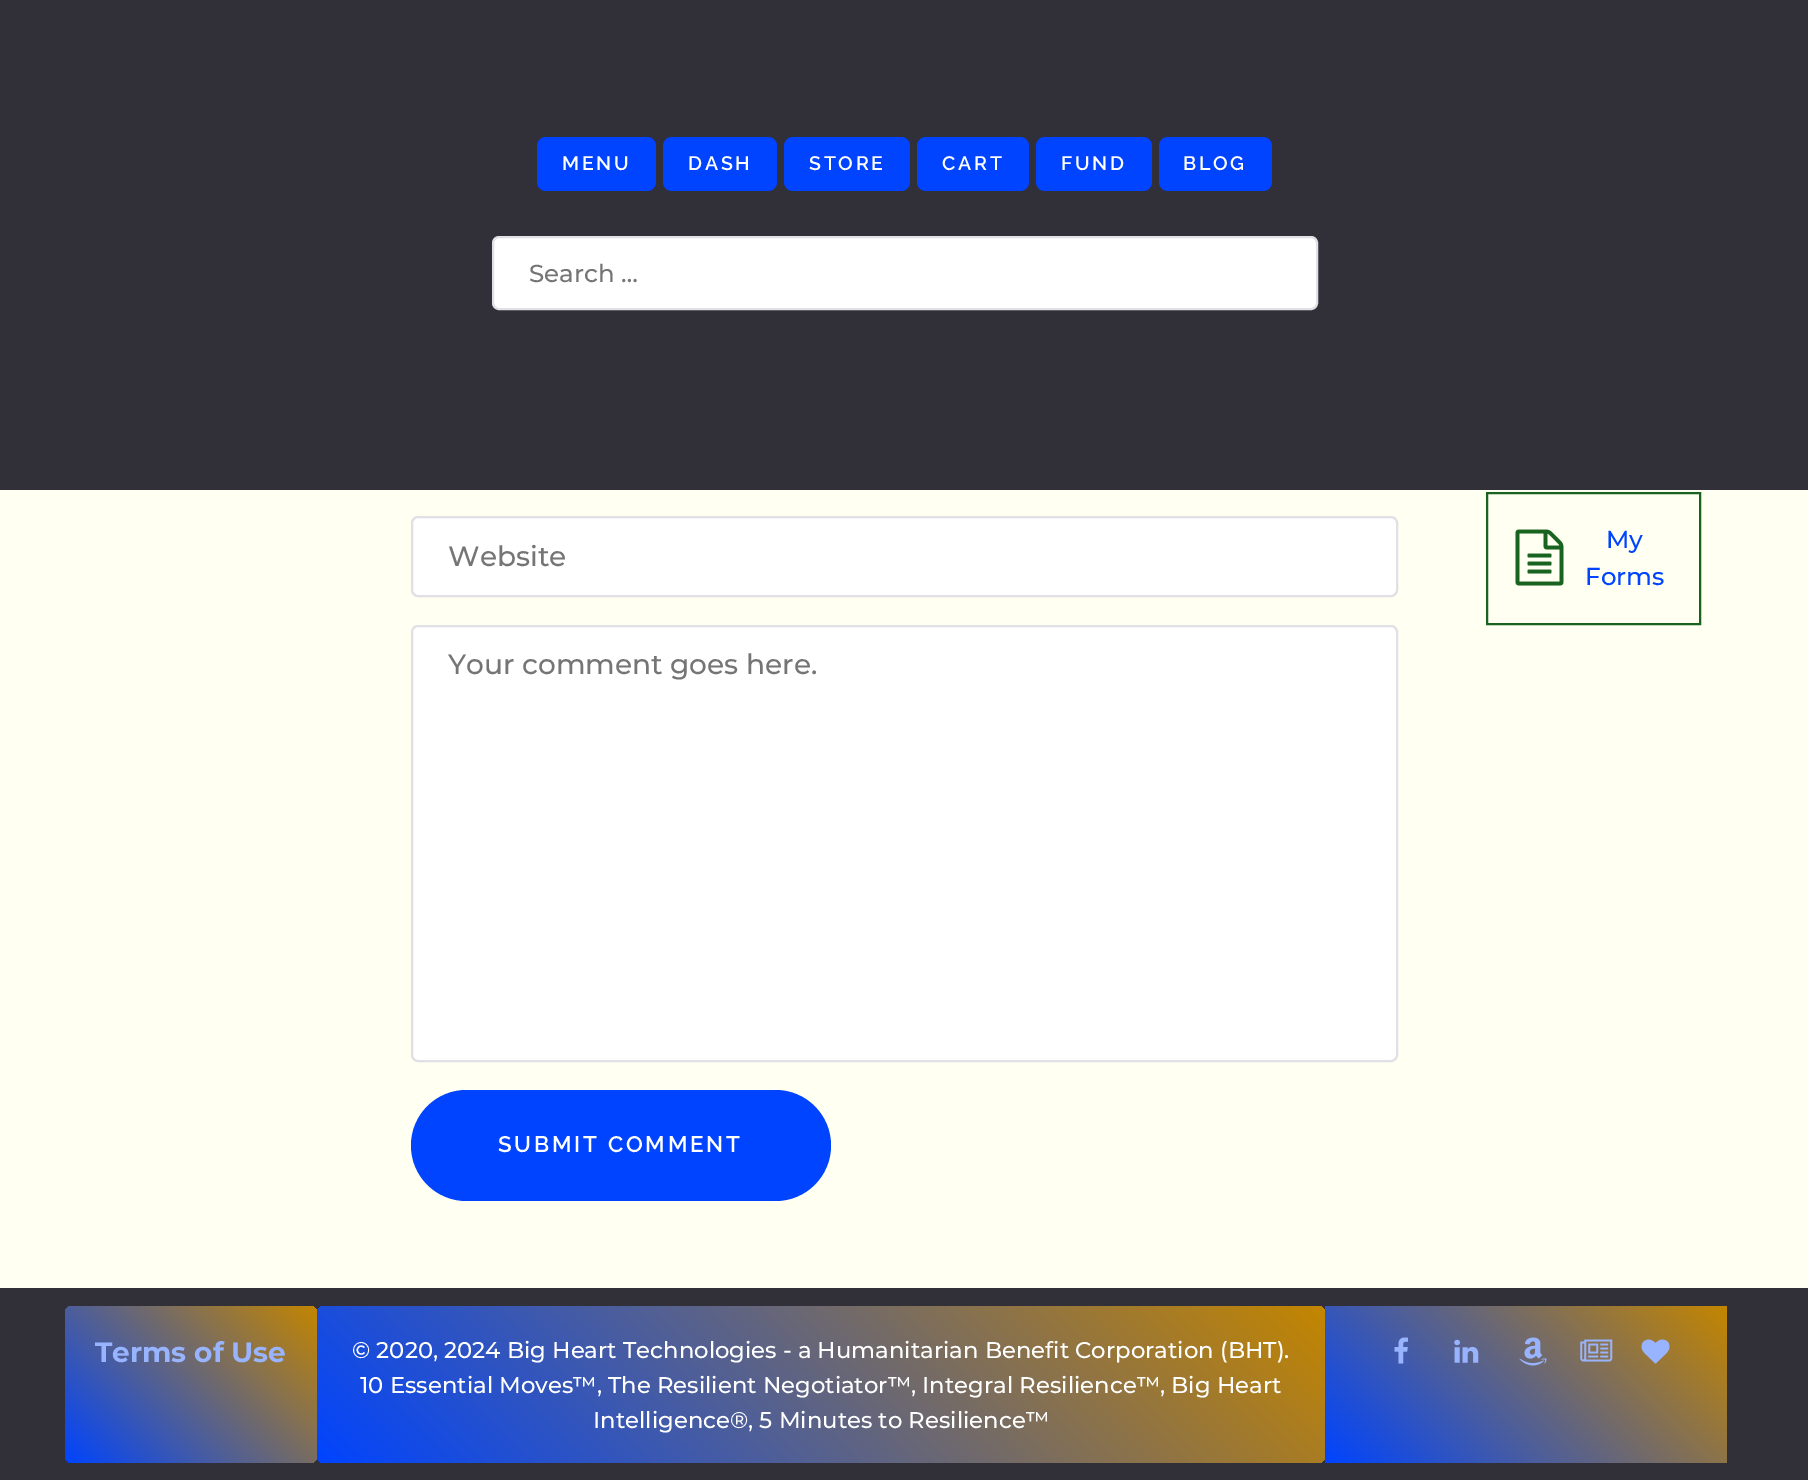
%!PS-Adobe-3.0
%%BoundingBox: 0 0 1808 1480
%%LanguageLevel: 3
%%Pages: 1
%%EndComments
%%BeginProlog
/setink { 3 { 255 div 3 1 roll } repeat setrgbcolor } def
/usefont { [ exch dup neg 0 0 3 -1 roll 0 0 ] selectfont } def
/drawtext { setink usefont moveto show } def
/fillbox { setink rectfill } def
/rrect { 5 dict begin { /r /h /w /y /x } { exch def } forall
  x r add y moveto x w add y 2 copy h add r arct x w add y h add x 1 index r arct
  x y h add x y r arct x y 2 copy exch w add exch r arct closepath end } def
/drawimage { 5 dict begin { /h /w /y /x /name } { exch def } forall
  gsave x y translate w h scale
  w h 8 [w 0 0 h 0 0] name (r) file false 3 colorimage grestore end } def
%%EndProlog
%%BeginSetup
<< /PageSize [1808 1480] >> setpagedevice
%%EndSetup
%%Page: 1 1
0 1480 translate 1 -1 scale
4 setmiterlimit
0 0 1808 1480 255 255 242 fillbox
0 0 1808 490 49 47 56 fillbox
0 68 255 setink
537 137 119 54 9 rrect fill
/Raleway-SemiBold 19.5 usefont
255 255 255 setink
562 170 moveto 2.75 0 (MENU) ashow
0 68 255 setink
663 137 114 54 9 rrect fill
255 255 255 setink
688 170 moveto 2.75 0 (DASH) ashow
0 68 255 setink
784 137 126 54 9 rrect fill
255 255 255 setink
809 170 moveto 2.75 0 (STORE) ashow
0 68 255 setink
917 137 112 54 9 rrect fill
255 255 255 setink
942 170 moveto 2.75 0 (CART) ashow
0 68 255 setink
1036 137 116 54 9 rrect fill
255 255 255 setink
1061 170 moveto 2.75 0 (FUND) ashow
0 68 255 setink
1159 137 113 54 9 rrect fill
255 255 255 setink
1183 170 moveto 2.75 0 (BLOG) ashow
493 237 824 72 6 rrect gsave fill grestore
224 224 229 setink
2 setlinewidth
stroke
(Search …) 529 282 /Montserrat-Medium 24.5 117 117 117 drawtext
255 255 255 setink
412 517 985 79 6 rrect gsave fill grestore
224 224 229 setink
stroke
(Website) 448 566 /Montserrat-Medium 28 117 117 117 drawtext
255 255 255 setink
412 626 985 435 6 rrect gsave fill grestore
224 224 229 setink
stroke
(Your comment goes here.) 448 674 /Montserrat-Medium 28 117 117 117 drawtext
0 68 255 setink
411 1090 420 111 55.5 rrect fill
/Raleway-SemiBold 22.4 usefont
255 255 255 setink
498 1152 moveto 2.75 0 (SUBMIT COMMENT) ashow
24 99 32 setink
1487 493 213 131 rectstroke
(assets/img1.rgb) 1515 529 49 57 drawimage
(My) 1606 548 /Montserrat-Medium 24.5 0 68 255 drawtext
(Forms) 1585 585 /Montserrat-Medium 24.5 0 68 255 drawtext
0 1288 1808 192 49 47 56 fillbox
gsave 65 1306 252 157 7 rrect clip newpath
<< /ShadingType 2 /ColorSpace /DeviceRGB /Coords [88 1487 293 1282] /Extend [true true] /Function << /FunctionType 2 /Domain [0 1] /C0 [0 0.267 1] /C1 [0.769 0.525 0] /N 1 >> >> shfill grestore
(Terms of Use) 95 1362 /Montserrat-Bold 28 153 180 255 drawtext
gsave 317 1306 1008 157 7 rrect clip newpath
<< /ShadingType 2 /ColorSpace /DeviceRGB /Coords [529 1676 1112 1093] /Extend [true true] /Function << /FunctionType 2 /Domain [0 1] /C0 [0 0.267 1] /C1 [0.769 0.525 0] /N 1 >> >> shfill grestore
(© 2020, 2024 Big Heart Technologies - a Humanitarian Benefit Corporation \(BHT\).) 352 1358 /Montserrat-Medium 22.75 255 255 255 drawtext
(10 Essential Moves™, The Resilient Negotiator™, Integral Resilience™, Big Heart) 360 1393 /Montserrat-Medium 22.75 255 255 255 drawtext
(Intelligence®, 5 Minutes to Resilience™) 593 1428 /Montserrat-Medium 22.75 255 255 255 drawtext
gsave 1325 1306 moveto 1727 1306 lineto 1727 1463 lineto 1325 1463 lineto closepath clip newpath
<< /ShadingType 2 /ColorSpace /DeviceRGB /Coords [1386 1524 1666 1244] /Extend [true true] /Function << /FunctionType 2 /Domain [0 1] /C0 [0 0.267 1] /C1 [0.769 0.525 0] /N 1 >> >> shfill grestore
(assets/img2.rgb) 1394 1337 14 27 drawimage
(assets/img3.rgb) 1454 1339 25 24 drawimage
(assets/img4.rgb) 1519 1337 28 29 drawimage
(assets/img5.rgb) 1580 1339 33 23 drawimage
(assets/img6.rgb) 1641 1339 29 25 drawimage
showpage
%%EOF
